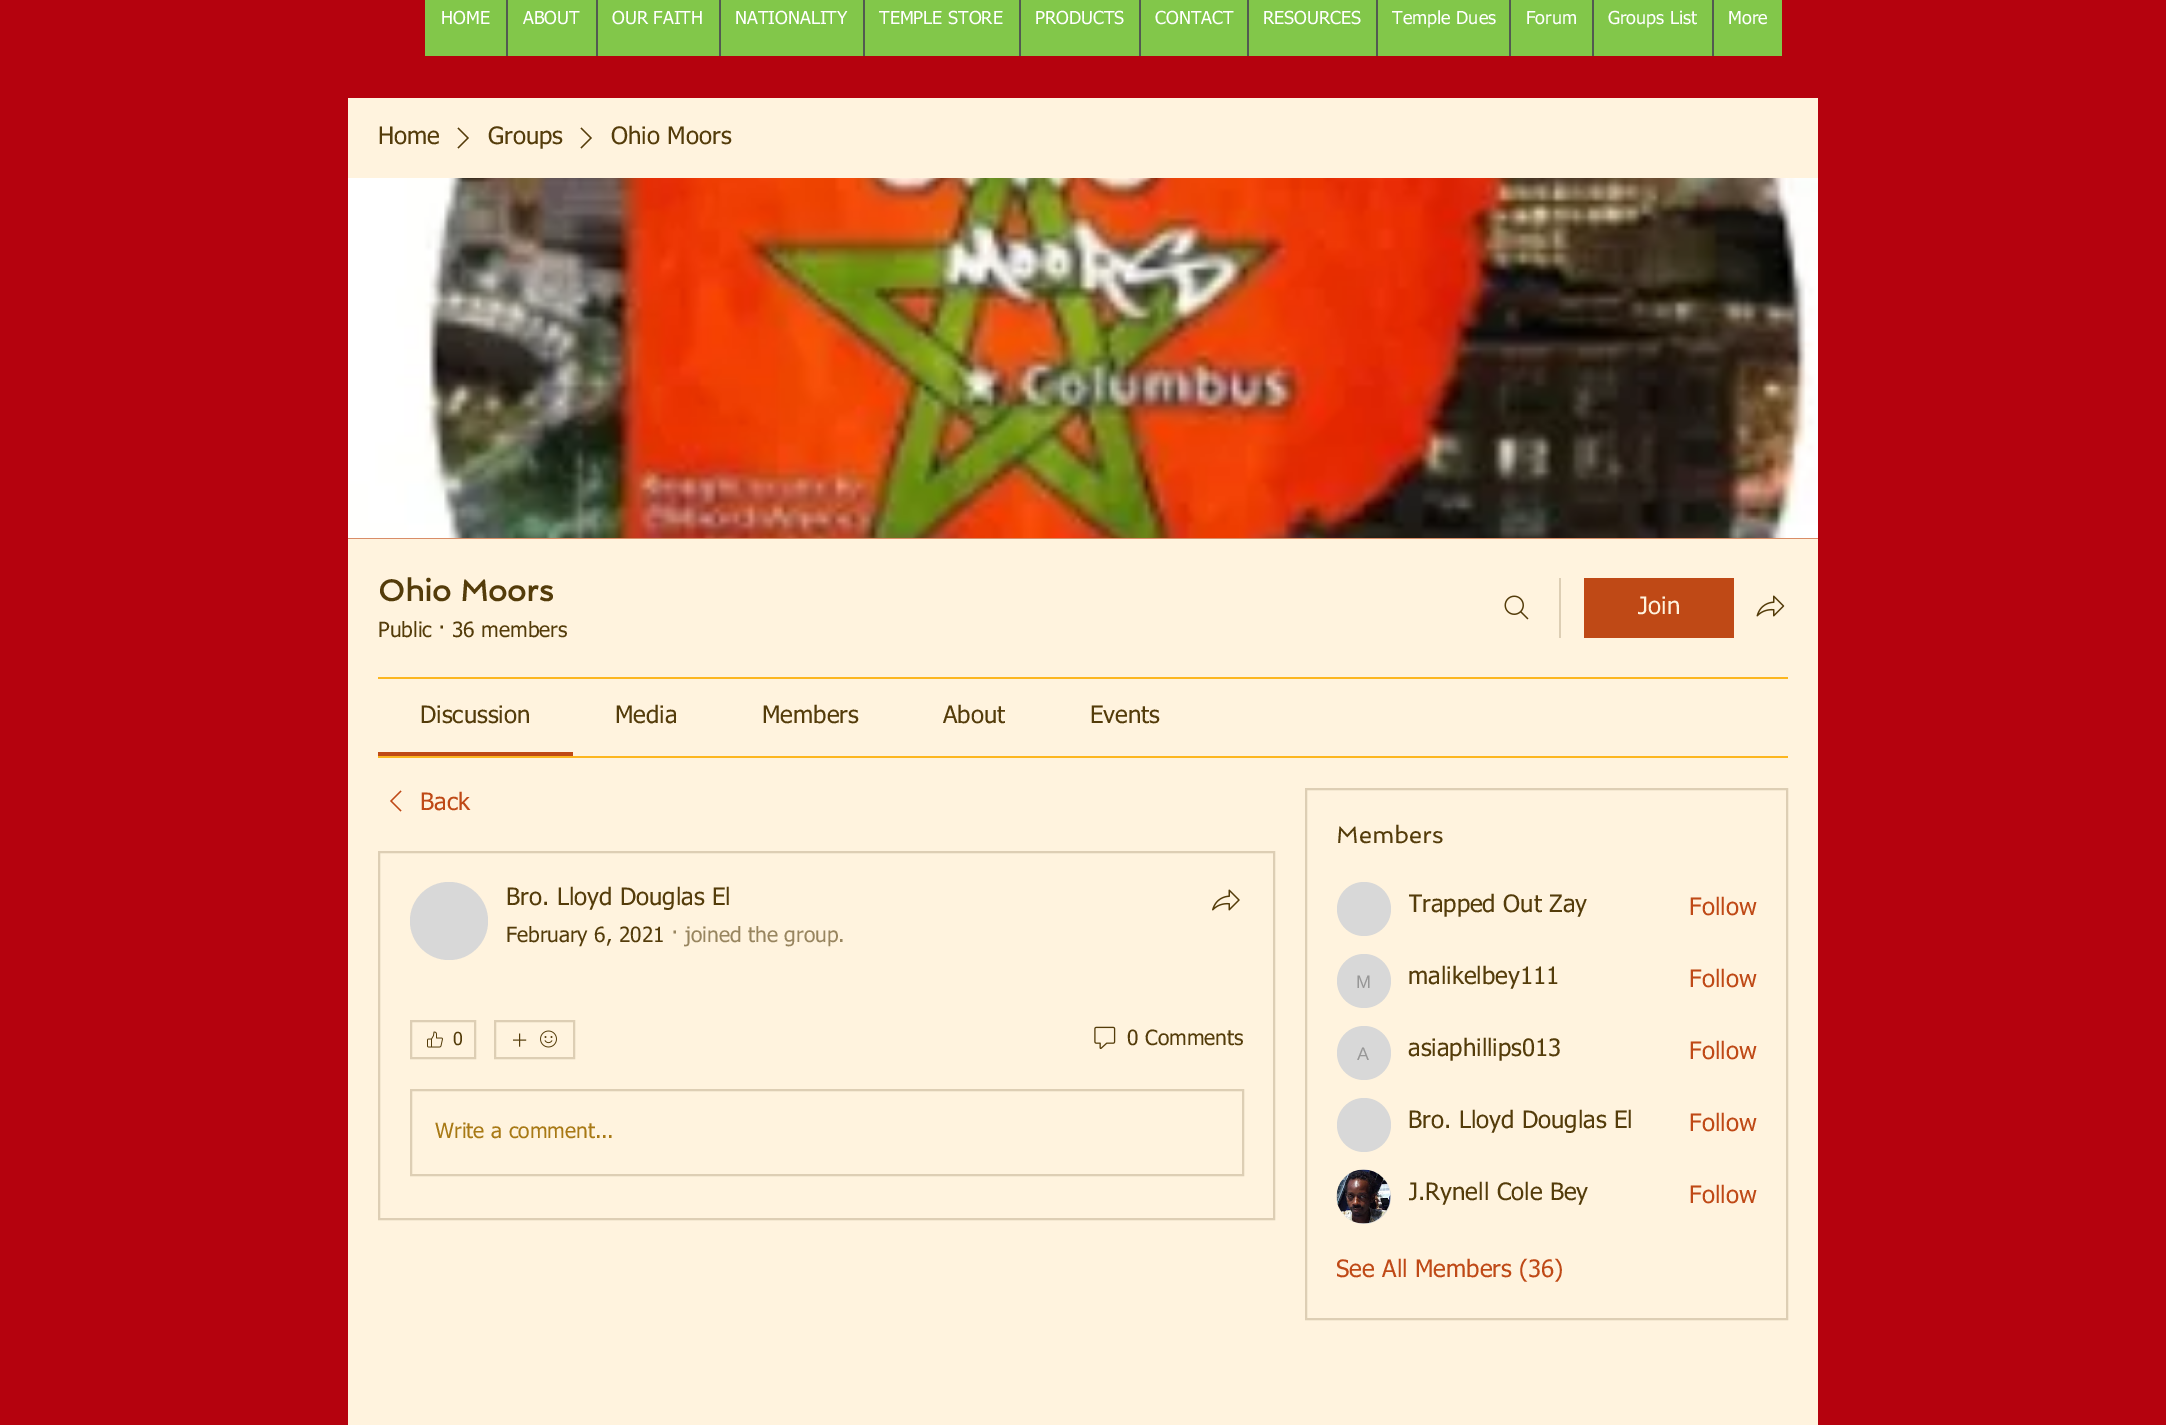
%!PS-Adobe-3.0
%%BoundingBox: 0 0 2166 1425
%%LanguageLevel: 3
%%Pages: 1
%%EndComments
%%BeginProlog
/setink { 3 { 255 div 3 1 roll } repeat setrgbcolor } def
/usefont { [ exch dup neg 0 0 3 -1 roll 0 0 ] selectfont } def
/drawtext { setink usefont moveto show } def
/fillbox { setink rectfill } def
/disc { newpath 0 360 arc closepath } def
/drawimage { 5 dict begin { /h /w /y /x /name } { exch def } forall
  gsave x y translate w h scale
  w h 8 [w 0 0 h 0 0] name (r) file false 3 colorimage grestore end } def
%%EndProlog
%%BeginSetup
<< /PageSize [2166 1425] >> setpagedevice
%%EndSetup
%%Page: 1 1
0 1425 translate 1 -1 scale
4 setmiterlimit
0 0 2166 1425 181 2 14 fillbox
425 0 1357 56 130 199 74 fillbox
(HOME) 441 24 /tahoma-Regular 18 255 255 255 drawtext
506 0 2 56 82 90 81 fillbox
(ABOUT) 523 24 /tahoma-Regular 18 255 255 255 drawtext
596 0 2 56 82 90 81 fillbox
(OUR FAITH) 612 24 /tahoma-Regular 18 255 255 255 drawtext
719 0 2 56 82 90 81 fillbox
(NATIONALITY) 735 24 /tahoma-Regular 18 255 255 255 drawtext
863 0 2 56 82 90 81 fillbox
(TEMPLE STORE) 879 24 /tahoma-Regular 18 255 255 255 drawtext
1019 0 2 56 82 90 81 fillbox
(PRODUCTS) 1035 24 /tahoma-Regular 18 255 255 255 drawtext
1139 0 2 56 82 90 81 fillbox
(CONTACT) 1155 24 /tahoma-Regular 18 255 255 255 drawtext
1247 0 2 56 82 90 81 fillbox
(RESOURCES) 1263 24 /tahoma-Regular 18 255 255 255 drawtext
1376 0 2 56 82 90 81 fillbox
(Temple Dues) 1392 24 /tahoma-Regular 18 255 255 255 drawtext
1509 0 2 56 82 90 81 fillbox
(Forum) 1526 24 /tahoma-Regular 18 255 255 255 drawtext
1592 0 2 56 82 90 81 fillbox
(Groups List) 1608 24 /tahoma-Regular 18 255 255 255 drawtext
1712 0 2 56 82 90 81 fillbox
(More) 1728 24 /tahoma-Regular 18 255 255 255 drawtext
348 98 1470 1327 255 243 222 fillbox
(Home) 378 144 /tahoma-Regular 24 84 60 10 drawtext
458.5 127.5 moveto 469 138 lineto 458.5 148.5 lineto 457.5 147.5 lineto 467 138 lineto 457.5 128.5 lineto closepath eofill
(Groups) 488 144 /tahoma-Regular 24 84 60 10 drawtext
581.5 127.5 moveto 592 138 lineto 581.5 148.5 lineto 580.5 147.5 lineto 590 138 lineto 580.5 128.5 lineto closepath eofill
(Ohio Moors) 611 144 /tahoma-Regular 24 84 60 10 drawtext
348 538 1470 1 217 141 103 fillbox
(assets/img1.rgb) 348 178 1470 360 drawimage
(Ohio Moors) 378 601 /Spinnaker-Bold 30 84 60 10 drawtext
(Public) 378 637 /tahoma-Regular 21 84 60 10 drawtext
(·) 438 637 /tahoma-Regular 21 84 60 10 drawtext
(36 members) 452 637 /tahoma-Regular 21 84 60 10 drawtext
(assets/img2.rgb) 1504 595 25 25 drawimage
1559 578 2 60 221 206 180 fillbox
1584 578 150 60 191 73 22 fillbox
(Join) 1638 614 /tahoma-Regular 24 255 243 222 drawtext
(assets/img3.rgb) 1756 595 29 22 drawimage
378 677 1410 2 252 182 32 fillbox
378 756 1410 2 252 182 32 fillbox
378 752 195 4 191 73 22 fillbox
(Discussion) 420 723 /tahoma-Regular 24 84 60 10 drawtext
(Media) 615 723 /tahoma-Regular 24 84 60 10 drawtext
(Members) 762 723 /tahoma-Regular 24 84 60 10 drawtext
(About) 943 723 /tahoma-Regular 24 84 60 10 drawtext
(Events) 1090 723 /tahoma-Regular 24 84 60 10 drawtext
191 73 22 setink
400.5 790.5 moveto 401.5 791.5 lineto 392 801 lineto 401.5 810.5 lineto 400.5 811.5 lineto 390 801 lineto closepath eofill
(Back) 420 810 /tahoma-Regular 24 191 73 22 drawtext
221 206 180 setink
2 setlinewidth
379 852 895 367 rectstroke
216 216 216 setink
449 921 39 disc fill
(Bro. Lloyd Douglas El) 506 905 /tahoma-Regular 24 84 60 10 drawtext
(February 6, 2021) 506 942 /tahoma-Regular 21 84 60 10 drawtext
(· joined the group.) 671 942 /tahoma-Regular 21 152 133 95 drawtext
(assets/img4.rgb) 1212 889 28 22 drawimage
221 206 180 setink
411 1021 64 37 rectstroke
(assets/img5.rgb) 427 1031 16 17 drawimage
(0) 453 1045 /tahoma-Regular 18 84 60 10 drawtext
221 206 180 setink
495 1021 79 37 rectstroke
(assets/img6.rgb) 513 1033 14 14 drawimage
(assets/img7.rgb) 540 1030 17 18 drawimage
(assets/img8.rgb) 1094 1026 22 23 drawimage
(0 Comments) 1127 1045 /tahoma-Regular 21 84 60 10 drawtext
221 206 180 setink
411 1090 832 85 rectstroke
(Write a comment...) 435 1138 /tahoma-Regular 21 168 121 21 drawtext
221 206 180 setink
1306 789 481 530 rectstroke
(Members) 1336 843 /Spinnaker-Regular 24 84 60 10 drawtext
216 216 216 setink
1364 909 27 disc fill
gsave
1409 890 178 34 rectclip
(Trapped Out Zay) 1408 912 /tahoma-Regular 24 84 60 10 drawtext
grestore
(Follow) 1689 915 /tahoma-Regular 24 191 73 22 drawtext
216 216 216 setink
1364 981 27 disc fill
(M) 1356 988 /LiberationSans-Regular 18 151 151 151 drawtext
(malikelbey111) 1408 984 /tahoma-Regular 24 84 60 10 drawtext
(Follow) 1689 987 /tahoma-Regular 24 191 73 22 drawtext
216 216 216 setink
1364 1053 27 disc fill
(A) 1357 1060 /LiberationSans-Regular 18 151 151 151 drawtext
(asiaphillips013) 1408 1056 /tahoma-Regular 24 84 60 10 drawtext
(Follow) 1689 1059 /tahoma-Regular 24 191 73 22 drawtext
216 216 216 setink
1364 1125 27 disc fill
(Bro. Lloyd Douglas El) 1408 1128 /tahoma-Regular 24 84 60 10 drawtext
(Follow) 1689 1131 /tahoma-Regular 24 191 73 22 drawtext
216 216 216 setink
1364 1197 27 disc fill
(assets/img9.rgb) 1336 1169 55 55 drawimage
gsave
1409 1178 180 34 rectclip
(J.Rynell Cole Bey) 1408 1200 /tahoma-Regular 24 84 60 10 drawtext
grestore
(Follow) 1689 1203 /tahoma-Regular 24 191 73 22 drawtext
(See All Members \(36\)) 1336 1277 /tahoma-Regular 24 191 73 22 drawtext
showpage
%%EOF
